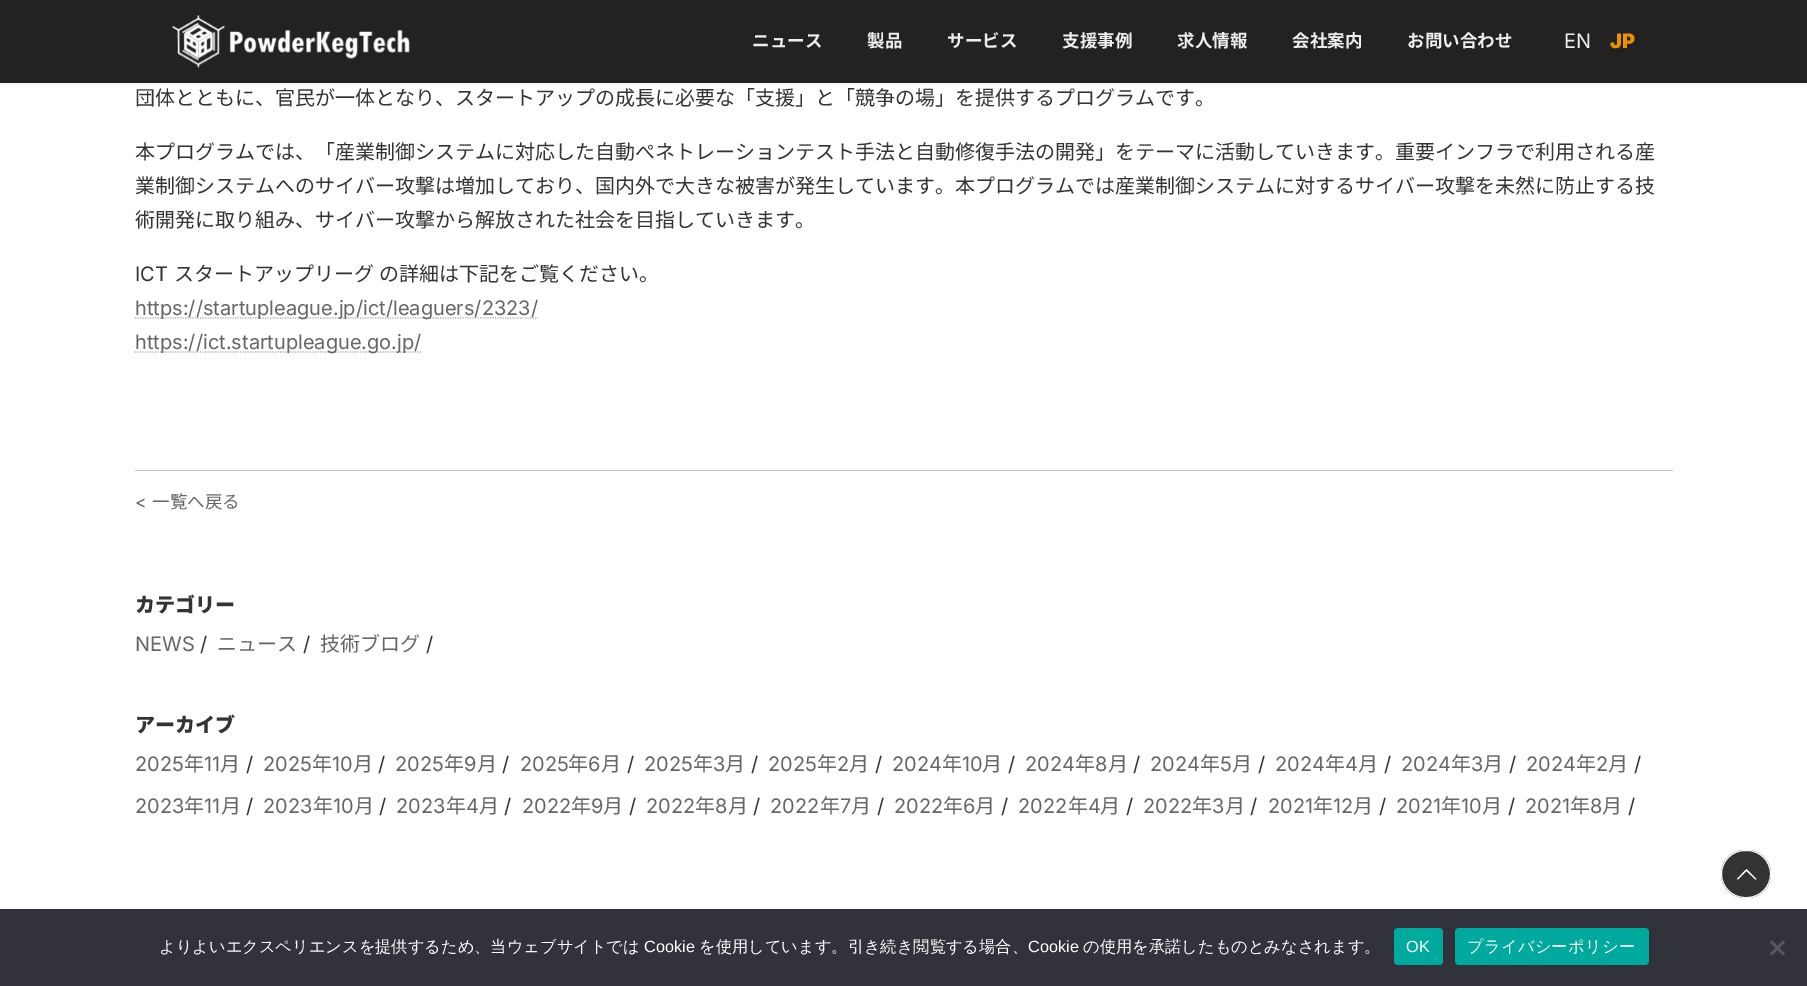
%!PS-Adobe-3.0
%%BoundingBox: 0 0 1807 986
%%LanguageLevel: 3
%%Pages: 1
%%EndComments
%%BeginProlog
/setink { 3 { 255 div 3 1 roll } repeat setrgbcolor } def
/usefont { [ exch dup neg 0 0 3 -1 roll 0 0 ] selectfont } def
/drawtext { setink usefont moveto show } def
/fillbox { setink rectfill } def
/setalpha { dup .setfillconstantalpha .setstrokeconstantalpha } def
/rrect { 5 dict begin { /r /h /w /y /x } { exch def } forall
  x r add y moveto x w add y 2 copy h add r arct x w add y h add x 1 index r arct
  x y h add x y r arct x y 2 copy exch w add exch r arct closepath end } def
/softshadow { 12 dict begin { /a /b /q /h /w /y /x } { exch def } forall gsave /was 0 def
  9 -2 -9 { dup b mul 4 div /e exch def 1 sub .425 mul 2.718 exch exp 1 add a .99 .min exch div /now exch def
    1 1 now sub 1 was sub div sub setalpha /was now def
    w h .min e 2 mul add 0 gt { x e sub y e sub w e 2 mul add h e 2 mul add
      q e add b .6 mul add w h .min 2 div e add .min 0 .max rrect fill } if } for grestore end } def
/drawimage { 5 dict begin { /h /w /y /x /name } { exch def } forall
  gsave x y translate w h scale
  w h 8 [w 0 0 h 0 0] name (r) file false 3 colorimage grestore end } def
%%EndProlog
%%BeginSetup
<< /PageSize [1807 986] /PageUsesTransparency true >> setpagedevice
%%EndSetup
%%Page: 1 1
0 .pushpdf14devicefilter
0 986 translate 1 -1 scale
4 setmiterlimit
0 0 1807 986 255 255 255 fillbox
0 0 0 setink
0 1 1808 83 0 2 0.05 softshadow
0 0 1807 83 34 34 34 fillbox
(assets/img1.rgb) 172 15 238 53 drawimage
(ニュース) 752 47 /NotoSansJP-Bold 17.5 238 238 238 drawtext
(製品) 867 47 /NotoSansJP-Bold 17.5 238 238 238 drawtext
(サービス) 947 47 /NotoSansJP-Bold 17.5 238 238 238 drawtext
(支援事例) 1062 47 /NotoSansJP-Bold 17.5 238 238 238 drawtext
(求人情報) 1177 47 /NotoSansJP-Bold 17.5 238 238 238 drawtext
(会社案内) 1292 47 /NotoSansJP-Bold 17.5 238 238 238 drawtext
(お問い合わせ) 1407 47 /NotoSansJP-Bold 17.5 238 238 238 drawtext
(EN) 1564 48 /Inter-Regular 20 238 238 238 drawtext
24 24 24 setink
1.2 setlinewidth
[1.25 1.25] 0 setdash
1564 50.5 moveto 1591 50.5 lineto stroke
(JP) 1610 48 /Inter-Black 20 236 146 0 drawtext
24 24 24 setink
1610 50.5 moveto 1635 50.5 lineto stroke
135 470 1538 1 196 196 196 fillbox
(団体とともに、官民が一体となり、スタートアップの成長に必要な「支援」と「競争の場」を提供するプログラムです。) 135 105 /NotoSansJP-Regular 20 51 51 51 drawtext
(本プログラムでは、「産業制御システムに対応した自動ぺネトレーションテスト手法と自動修復手法の開発」をテーマに活動していきます。重要インフラで利用される産) 135 159 /NotoSansJP-Regular 20 51 51 51 drawtext
(業制御システムへのサイバー攻撃は増加しており、国内外で大きな被害が発生しています。本プログラムでは産業制御システムに対するサイバー攻撃を未然に防止する技) 135 193 /NotoSansJP-Regular 20 51 51 51 drawtext
(術開発に取り組み、サイバー攻撃から解放された社会を目指していきます。) 135 227 /NotoSansJP-Regular 20 51 51 51 drawtext
(ICT) 135 281 /Inter-Regular 20 51 51 51 drawtext
/NotoSansJP-Regular 20 usefont
174 281 moveto 1 0 32 (スタートアップリーグ の詳細は下記をご覧ください。) widthshow
179 179 179 setink
135 318 moveto 538 318 lineto stroke
(https://startupleague.jp/ict/leaguers/2323/) 135 315 /Inter-Regular 20 102 102 102 drawtext
179 179 179 setink
135 352 moveto 421.5 352 lineto stroke
(https://ict.startupleague.go.jp/) 135 349 /Inter-Regular 20 102 102 102 drawtext
(<) 135 508 /Inter-Regular 17.5 102 102 102 drawtext
(一覧へ戻る) 152 508 /NotoSansJP-Regular 17.5 102 102 102 drawtext
(カテゴリー) 135 612 /NotoSansJP-Black 20 51 51 51 drawtext
(NEWS) 135 651 /Inter-Regular 20 102 102 102 drawtext
(/) 200 651 /Inter-Regular 20 51 51 51 drawtext
(ニュース) 217 651 /NotoSansJP-Regular 20 102 102 102 drawtext
(/) 303 651 /Inter-Regular 20 51 51 51 drawtext
(技術ブログ) 320 651 /NotoSansJP-Regular 20 102 102 102 drawtext
(/) 426 651 /Inter-Regular 20 51 51 51 drawtext
(アーカイブ) 135 732 /NotoSansJP-Black 20 51 51 51 drawtext
(2025) 135 771 /Inter-Regular 20 102 102 102 drawtext
(年) 184 771 /NotoSansJP-Regular 20 102 102 102 drawtext
(11) 204 771 /Inter-Regular 20 102 102 102 drawtext
(月) 220 771 /NotoSansJP-Regular 20 102 102 102 drawtext
(/) 246 771 /Inter-Regular 20 51 51 51 drawtext
(2025) 263 771 /Inter-Regular 20 102 102 102 drawtext
(年) 312 771 /NotoSansJP-Regular 20 102 102 102 drawtext
(10) 332 771 /Inter-Regular 20 102 102 102 drawtext
(月) 353 771 /NotoSansJP-Regular 20 102 102 102 drawtext
(/) 378 771 /Inter-Regular 20 51 51 51 drawtext
(2025) 395 771 /Inter-Regular 20 102 102 102 drawtext
(年) 444 771 /NotoSansJP-Regular 20 102 102 102 drawtext
(9) 464 771 /Inter-Regular 20 102 102 102 drawtext
(月) 477 771 /NotoSansJP-Regular 20 102 102 102 drawtext
(/) 502 771 /Inter-Regular 20 51 51 51 drawtext
(2025) 520 771 /Inter-Regular 20 102 102 102 drawtext
(年) 568 771 /NotoSansJP-Regular 20 102 102 102 drawtext
(6) 588 771 /Inter-Regular 20 102 102 102 drawtext
(月) 601 771 /NotoSansJP-Regular 20 102 102 102 drawtext
(/) 627 771 /Inter-Regular 20 51 51 51 drawtext
(2025) 644 771 /Inter-Regular 20 102 102 102 drawtext
(年) 693 771 /NotoSansJP-Regular 20 102 102 102 drawtext
(3) 713 771 /Inter-Regular 20 102 102 102 drawtext
(月) 725 771 /NotoSansJP-Regular 20 102 102 102 drawtext
(/) 751 771 /Inter-Regular 20 51 51 51 drawtext
(2025) 768 771 /Inter-Regular 20 102 102 102 drawtext
(年) 817 771 /NotoSansJP-Regular 20 102 102 102 drawtext
(2) 837 771 /Inter-Regular 20 102 102 102 drawtext
(月) 849 771 /NotoSansJP-Regular 20 102 102 102 drawtext
(/) 875 771 /Inter-Regular 20 51 51 51 drawtext
(2024) 892 771 /Inter-Regular 20 102 102 102 drawtext
(年) 942 771 /NotoSansJP-Regular 20 102 102 102 drawtext
(10) 962 771 /Inter-Regular 20 102 102 102 drawtext
(月) 982 771 /NotoSansJP-Regular 20 102 102 102 drawtext
(/) 1008 771 /Inter-Regular 20 51 51 51 drawtext
(2024) 1025 771 /Inter-Regular 20 102 102 102 drawtext
(年) 1075 771 /NotoSansJP-Regular 20 102 102 102 drawtext
(8) 1095 771 /Inter-Regular 20 102 102 102 drawtext
(月) 1108 771 /NotoSansJP-Regular 20 102 102 102 drawtext
(/) 1133 771 /Inter-Regular 20 51 51 51 drawtext
(2024) 1150 771 /Inter-Regular 20 102 102 102 drawtext
(年) 1200 771 /NotoSansJP-Regular 20 102 102 102 drawtext
(5) 1220 771 /Inter-Regular 20 102 102 102 drawtext
(月) 1232 771 /NotoSansJP-Regular 20 102 102 102 drawtext
(/) 1258 771 /Inter-Regular 20 51 51 51 drawtext
(2024) 1275 771 /Inter-Regular 20 102 102 102 drawtext
(年) 1325 771 /NotoSansJP-Regular 20 102 102 102 drawtext
(4) 1345 771 /Inter-Regular 20 102 102 102 drawtext
(月) 1358 771 /NotoSansJP-Regular 20 102 102 102 drawtext
(/) 1384 771 /Inter-Regular 20 51 51 51 drawtext
(2024) 1401 771 /Inter-Regular 20 102 102 102 drawtext
(年) 1451 771 /NotoSansJP-Regular 20 102 102 102 drawtext
(3) 1471 771 /Inter-Regular 20 102 102 102 drawtext
(月) 1483 771 /NotoSansJP-Regular 20 102 102 102 drawtext
(/) 1509 771 /Inter-Regular 20 51 51 51 drawtext
(2024) 1526 771 /Inter-Regular 20 102 102 102 drawtext
(年) 1576 771 /NotoSansJP-Regular 20 102 102 102 drawtext
(2) 1596 771 /Inter-Regular 20 102 102 102 drawtext
(月) 1608 771 /NotoSansJP-Regular 20 102 102 102 drawtext
(/) 1634 771 /Inter-Regular 20 51 51 51 drawtext
(2023) 135 813 /Inter-Regular 20 102 102 102 drawtext
(年) 184 813 /NotoSansJP-Regular 20 102 102 102 drawtext
(11) 204 813 /Inter-Regular 20 102 102 102 drawtext
(月) 221 813 /NotoSansJP-Regular 20 102 102 102 drawtext
(/) 246 813 /Inter-Regular 20 51 51 51 drawtext
(2023) 263 813 /Inter-Regular 20 102 102 102 drawtext
(年) 313 813 /NotoSansJP-Regular 20 102 102 102 drawtext
(10) 333 813 /Inter-Regular 20 102 102 102 drawtext
(月) 354 813 /NotoSansJP-Regular 20 102 102 102 drawtext
(/) 379 813 /Inter-Regular 20 51 51 51 drawtext
(2023) 396 813 /Inter-Regular 20 102 102 102 drawtext
(年) 446 813 /NotoSansJP-Regular 20 102 102 102 drawtext
(4) 466 813 /Inter-Regular 20 102 102 102 drawtext
(月) 479 813 /NotoSansJP-Regular 20 102 102 102 drawtext
(/) 504 813 /Inter-Regular 20 51 51 51 drawtext
(2022) 522 813 /Inter-Regular 20 102 102 102 drawtext
(年) 571 813 /NotoSansJP-Regular 20 102 102 102 drawtext
(9) 591 813 /Inter-Regular 20 102 102 102 drawtext
(月) 603 813 /NotoSansJP-Regular 20 102 102 102 drawtext
(/) 629 813 /Inter-Regular 20 51 51 51 drawtext
(2022) 646 813 /Inter-Regular 20 102 102 102 drawtext
(年) 695 813 /NotoSansJP-Regular 20 102 102 102 drawtext
(8) 715 813 /Inter-Regular 20 102 102 102 drawtext
(月) 728 813 /NotoSansJP-Regular 20 102 102 102 drawtext
(/) 753 813 /Inter-Regular 20 51 51 51 drawtext
(2022) 770 813 /Inter-Regular 20 102 102 102 drawtext
(年) 820 813 /NotoSansJP-Regular 20 102 102 102 drawtext
(7) 840 813 /Inter-Regular 20 102 102 102 drawtext
(月) 851 813 /NotoSansJP-Regular 20 102 102 102 drawtext
(/) 877 813 /Inter-Regular 20 51 51 51 drawtext
(2022) 894 813 /Inter-Regular 20 102 102 102 drawtext
(年) 943 813 /NotoSansJP-Regular 20 102 102 102 drawtext
(6) 963 813 /Inter-Regular 20 102 102 102 drawtext
(月) 975 813 /NotoSansJP-Regular 20 102 102 102 drawtext
(/) 1001 813 /Inter-Regular 20 51 51 51 drawtext
(2022) 1018 813 /Inter-Regular 20 102 102 102 drawtext
(年) 1068 813 /NotoSansJP-Regular 20 102 102 102 drawtext
(4) 1088 813 /Inter-Regular 20 102 102 102 drawtext
(月) 1100 813 /NotoSansJP-Regular 20 102 102 102 drawtext
(/) 1126 813 /Inter-Regular 20 51 51 51 drawtext
(2022) 1143 813 /Inter-Regular 20 102 102 102 drawtext
(年) 1192 813 /NotoSansJP-Regular 20 102 102 102 drawtext
(3) 1212 813 /Inter-Regular 20 102 102 102 drawtext
(月) 1225 813 /NotoSansJP-Regular 20 102 102 102 drawtext
(/) 1250 813 /Inter-Regular 20 51 51 51 drawtext
(2021) 1268 813 /Inter-Regular 20 102 102 102 drawtext
(年) 1313 813 /NotoSansJP-Regular 20 102 102 102 drawtext
(12) 1333 813 /Inter-Regular 20 102 102 102 drawtext
(月) 1353 813 /NotoSansJP-Regular 20 102 102 102 drawtext
(/) 1379 813 /Inter-Regular 20 51 51 51 drawtext
(2021) 1396 813 /Inter-Regular 20 102 102 102 drawtext
(年) 1441 813 /NotoSansJP-Regular 20 102 102 102 drawtext
(10) 1461 813 /Inter-Regular 20 102 102 102 drawtext
(月) 1482 813 /NotoSansJP-Regular 20 102 102 102 drawtext
(/) 1508 813 /Inter-Regular 20 51 51 51 drawtext
(2021) 1525 813 /Inter-Regular 20 102 102 102 drawtext
(年) 1570 813 /NotoSansJP-Regular 20 102 102 102 drawtext
(8) 1590 813 /Inter-Regular 20 102 102 102 drawtext
(月) 1602 813 /NotoSansJP-Regular 20 102 102 102 drawtext
(/) 1628 813 /Inter-Regular 20 51 51 51 drawtext
1721 850 50 48 24 rrect fill
255 255 255 setink
1756.5 879 moveto 1755.5 879.5 lineto 1746.5 871 lineto 1738 879.5 lineto 1737 879 lineto 1746.5 869 lineto closepath fill
1 setlinewidth
[] 0 setdash
1721.5 850.5 49 47 23.5 rrect stroke
0 909 1807 77 50 50 58 fillbox
(よりよいエクスペリエンスを提供するため、当ウェブサイトでは) 159 952 /WenQuanYiZenHei-Medium 16.25 255 255 255 drawtext
(Cookie) 644 952 /LiberationSans-Regular 16.25 255 255 255 drawtext
(を使用しています。引き続き閲覧する場合、) 699 952 /WenQuanYiZenHei-Medium 16.25 255 255 255 drawtext
(Cookie) 1028 952 /LiberationSans-Regular 16.25 255 255 255 drawtext
(の使用を承諾したものとみなされます。) 1083 952 /WenQuanYiZenHei-Medium 16.25 255 255 255 drawtext
0 169 157 setink
1394 928 49 37 4 rrect fill
/LiberationSans-Regular 16.25 usefont
255 255 255 setink
1406 952 moveto 0.25 0 (OK) ashow
0 169 157 setink
1455 928 194 37 4 rrect fill
/WenQuanYiZenHei-Medium 16.25 usefont
255 255 255 setink
1467 952 moveto 0.25 0 (プライバシーポリシー) ashow
89 89 93 setink
1783 940.5 moveto 1785 942 lineto 1772 955.5 lineto 1770 953.5 lineto closepath fill
1770 942 moveto 1772 940.5 lineto 1785 953.5 lineto 1783 955.5 lineto closepath fill
.poppdf14devicefilter showpage
%%EOF
